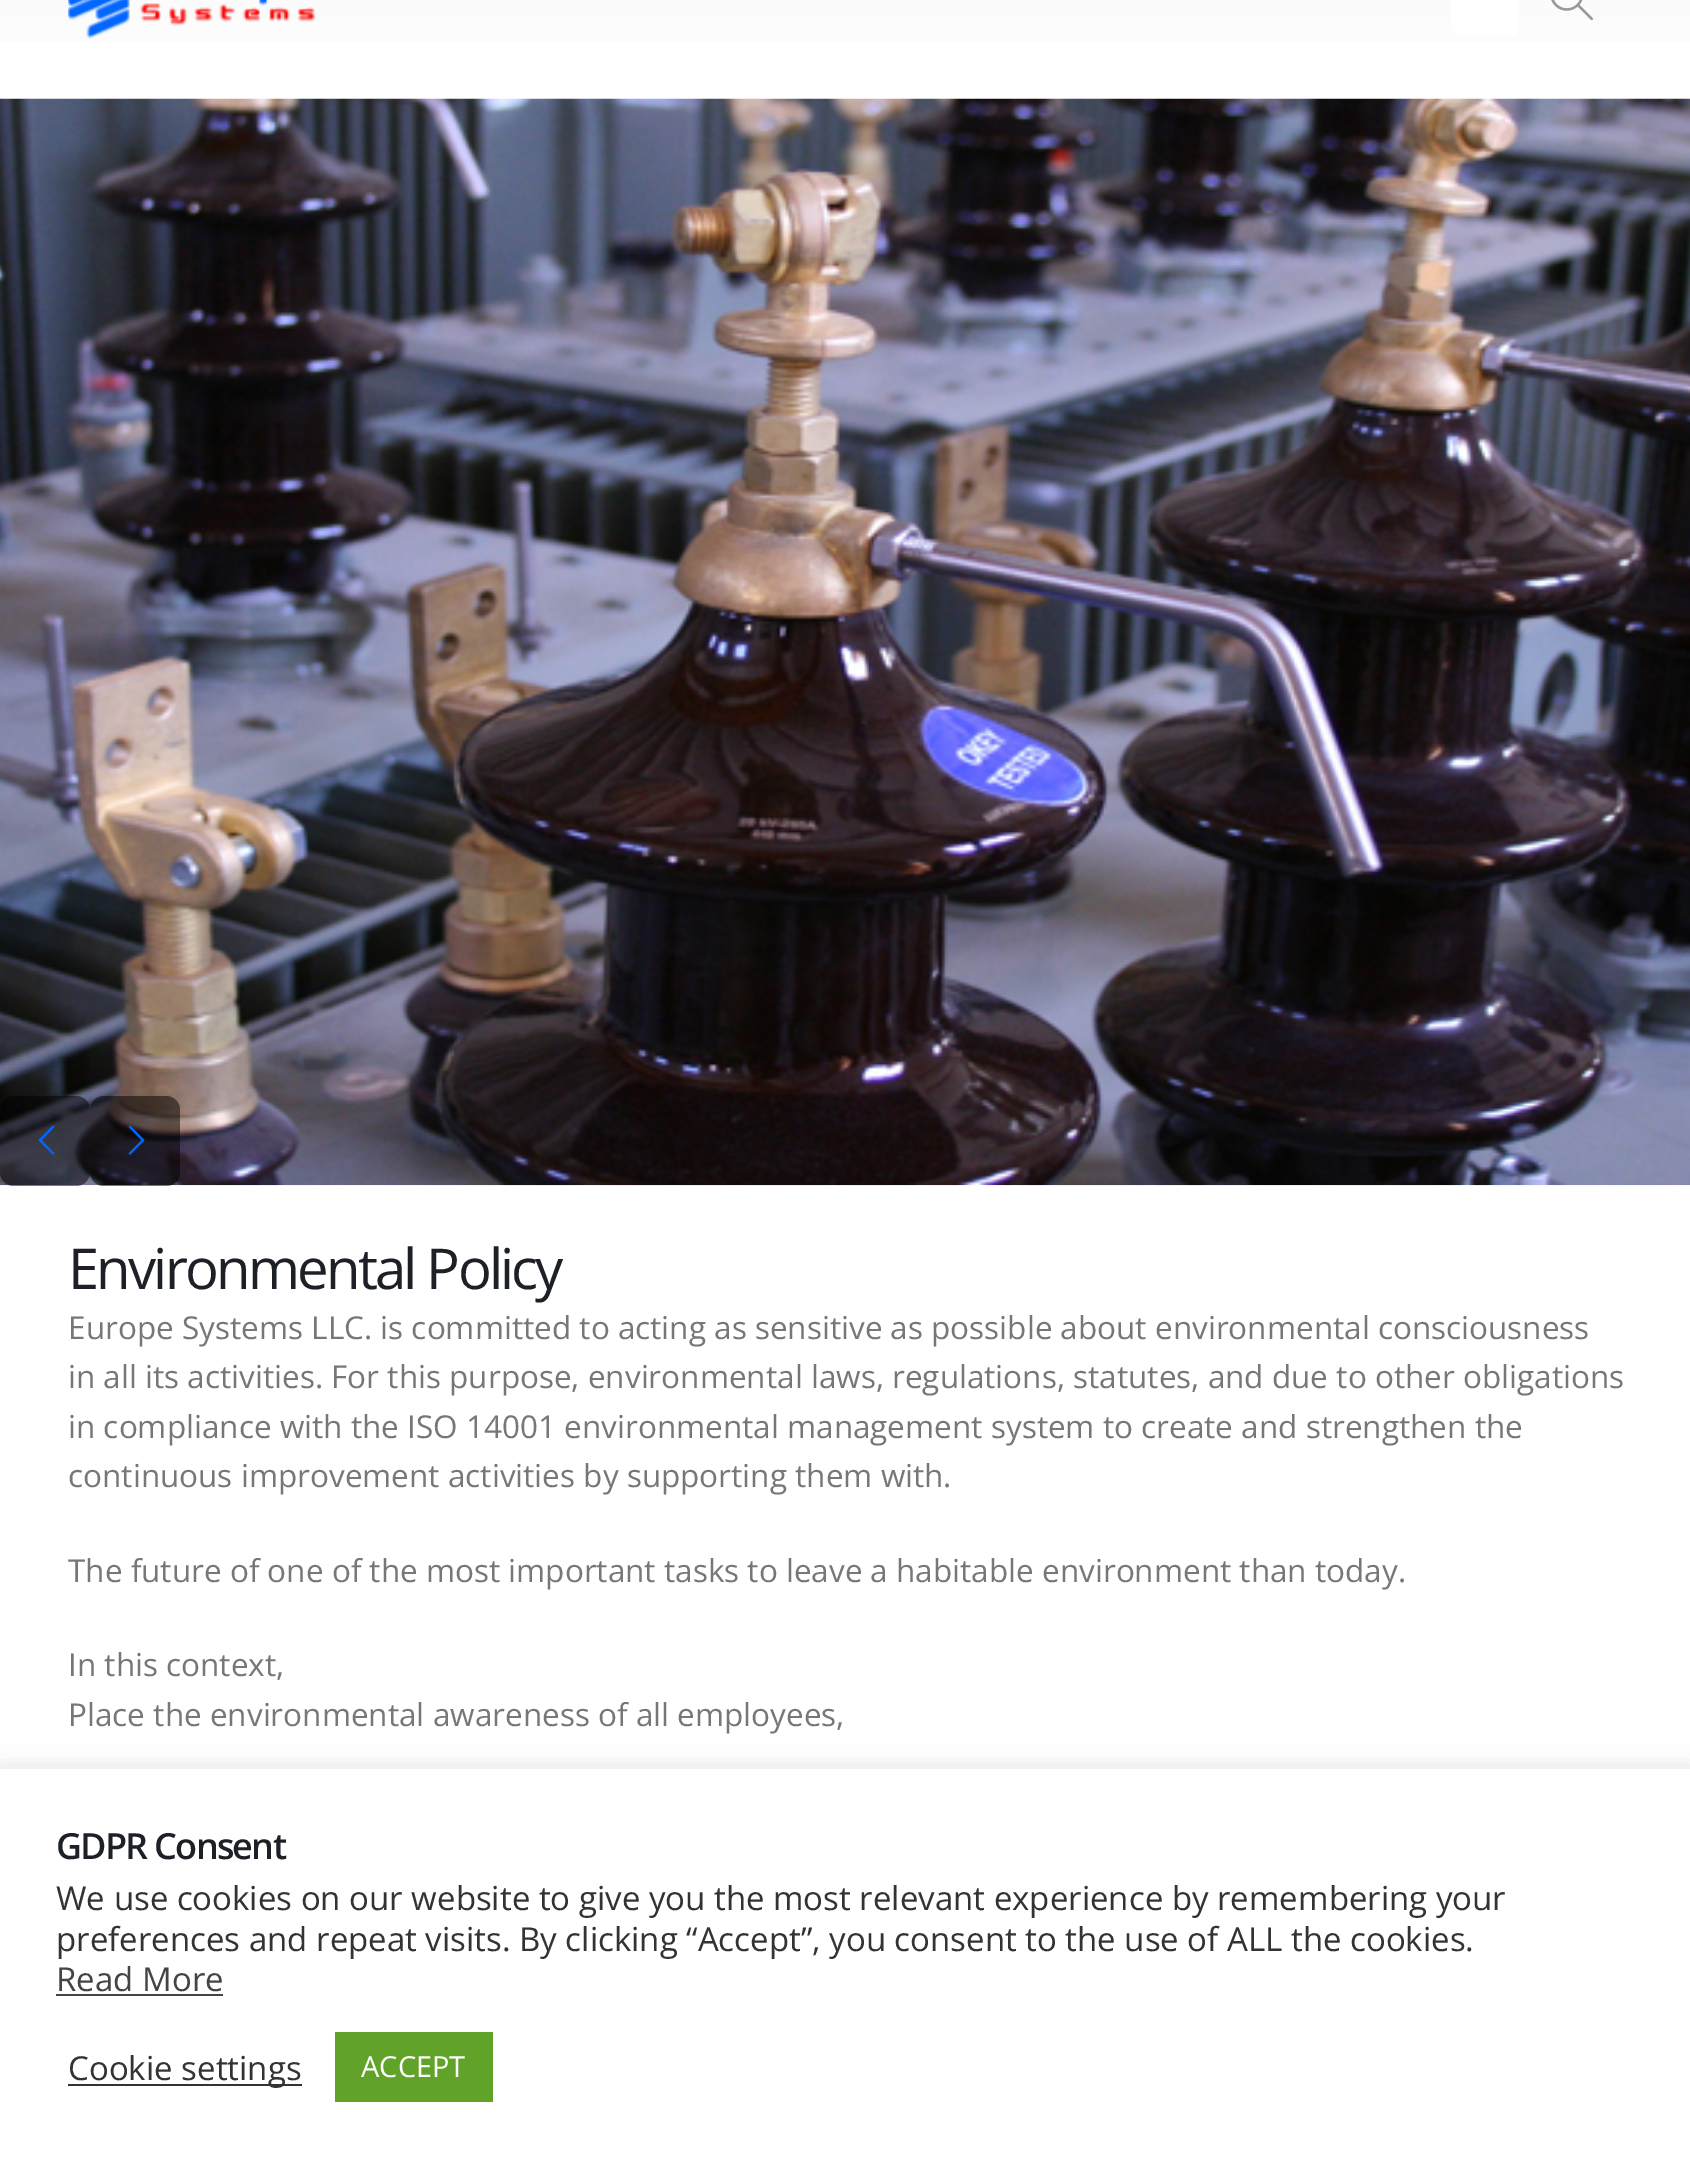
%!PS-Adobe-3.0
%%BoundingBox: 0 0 1690 2167
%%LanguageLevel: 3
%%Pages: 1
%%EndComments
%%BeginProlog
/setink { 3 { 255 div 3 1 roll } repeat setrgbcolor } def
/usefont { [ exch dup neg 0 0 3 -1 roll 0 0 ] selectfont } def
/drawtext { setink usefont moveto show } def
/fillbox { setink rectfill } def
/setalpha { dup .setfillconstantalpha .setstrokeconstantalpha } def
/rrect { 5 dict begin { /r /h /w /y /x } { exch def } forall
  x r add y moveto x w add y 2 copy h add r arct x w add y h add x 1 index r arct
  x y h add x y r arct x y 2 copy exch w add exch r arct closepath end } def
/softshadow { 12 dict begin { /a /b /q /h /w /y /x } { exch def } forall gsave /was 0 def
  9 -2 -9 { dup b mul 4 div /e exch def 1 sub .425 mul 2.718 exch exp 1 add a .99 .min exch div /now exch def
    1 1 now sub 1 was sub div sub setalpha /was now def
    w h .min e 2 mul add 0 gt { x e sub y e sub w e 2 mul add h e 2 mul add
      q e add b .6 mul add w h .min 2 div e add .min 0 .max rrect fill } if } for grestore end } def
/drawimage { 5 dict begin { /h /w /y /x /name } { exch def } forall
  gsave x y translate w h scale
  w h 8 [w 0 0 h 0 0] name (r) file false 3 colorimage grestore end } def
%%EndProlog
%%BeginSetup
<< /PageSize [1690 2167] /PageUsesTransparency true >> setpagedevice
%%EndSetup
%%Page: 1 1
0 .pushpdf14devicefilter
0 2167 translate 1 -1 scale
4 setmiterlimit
0 0 1690 2167 255 255 255 fillbox
gsave 0 0 moveto 1690 0 lineto 1690 43 lineto 0 43 lineto closepath clip newpath
<< /ShadingType 2 /ColorSpace /DeviceRGB /Coords [846 -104 846 99] /Extend [true true] /Function << /FunctionType 2 /Domain [0 1] /C0 [0.965 0.965 0.965] /C1 [1 1 1] /N 1 >> >> shfill grestore
(assets/img1.rgb) 68 0 247 39 drawimage
1451 -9 68 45 9 rrect fill
(assets/img2.rgb) 1551 0 42 21 drawimage
(assets/img3.rgb) 0 98 1690 1088 drawimage
0.5 setalpha
0 0 0 setink
0 1096 90 90 14 rrect fill
1 setalpha
(assets/img4.rgb) 38 1125 17 30 drawimage
0.5 setalpha
90 1096 90 90 14 rrect fill
1 setalpha
(assets/img5.rgb) 128 1125 17 30 drawimage
/OpenSans-Regular 56.25 usefont
29 33 39 setink
68 1289 moveto -2.8 0 (Environmental Policy) ashow
(Europe Systems LLC. is committed to acting as sensitive as possible about environmental consciousness) 68 1339 /OpenSans-Regular 31.5 119 119 119 drawtext
(in all its activities. For this purpose, environmental laws, regulations, statutes, and due to other obligations) 68 1388 /OpenSans-Regular 31.5 119 119 119 drawtext
(in compliance with the ISO 14001 environmental management system to create and strengthen the) 68 1438 /OpenSans-Regular 31.5 119 119 119 drawtext
(continuous improvement activities by supporting them with.) 68 1487 /OpenSans-Regular 31.5 119 119 119 drawtext
(The future of one of the most important tasks to leave a habitable environment than today.) 68 1582 /OpenSans-Regular 31.5 119 119 119 drawtext
(In this context,) 68 1676 /OpenSans-Regular 31.5 119 119 119 drawtext
(Place the environmental awareness of all employees,) 68 1726 /OpenSans-Regular 31.5 119 119 119 drawtext
172 171 171 setink
0 1766 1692 401 0 11 0.3 softshadow
0 1769 1690 398 255 255 255 fillbox
/OpenSans-SemiBold 36 usefont
29 33 39 setink
56 1859 moveto -1.75 0 (GDPR Consent) ashow
(We use cookies on our website to give you the most relevant experience by remembering your) 56 1910 /OpenSans-Regular 33 51 51 51 drawtext
(preferences and repeat visits. By clicking “Accept”, you consent to the use of ALL the cookies.) 56 1951 /OpenSans-Regular 33 51 51 51 drawtext
(Read More) 56 1991 /OpenSans-Regular 33 68 68 68 drawtext
56 1994 167 2 68 68 68 fillbox
68 2084 234 2 51 51 51 fillbox
(Cookie settings) 68 2080 /OpenSans-Regular 33 51 51 51 drawtext
335 2032 158 70 97 162 41 fillbox
(ACCEPT) 361 2077 /OpenSans-Regular 29 255 255 255 drawtext
.poppdf14devicefilter showpage
%%EOF
